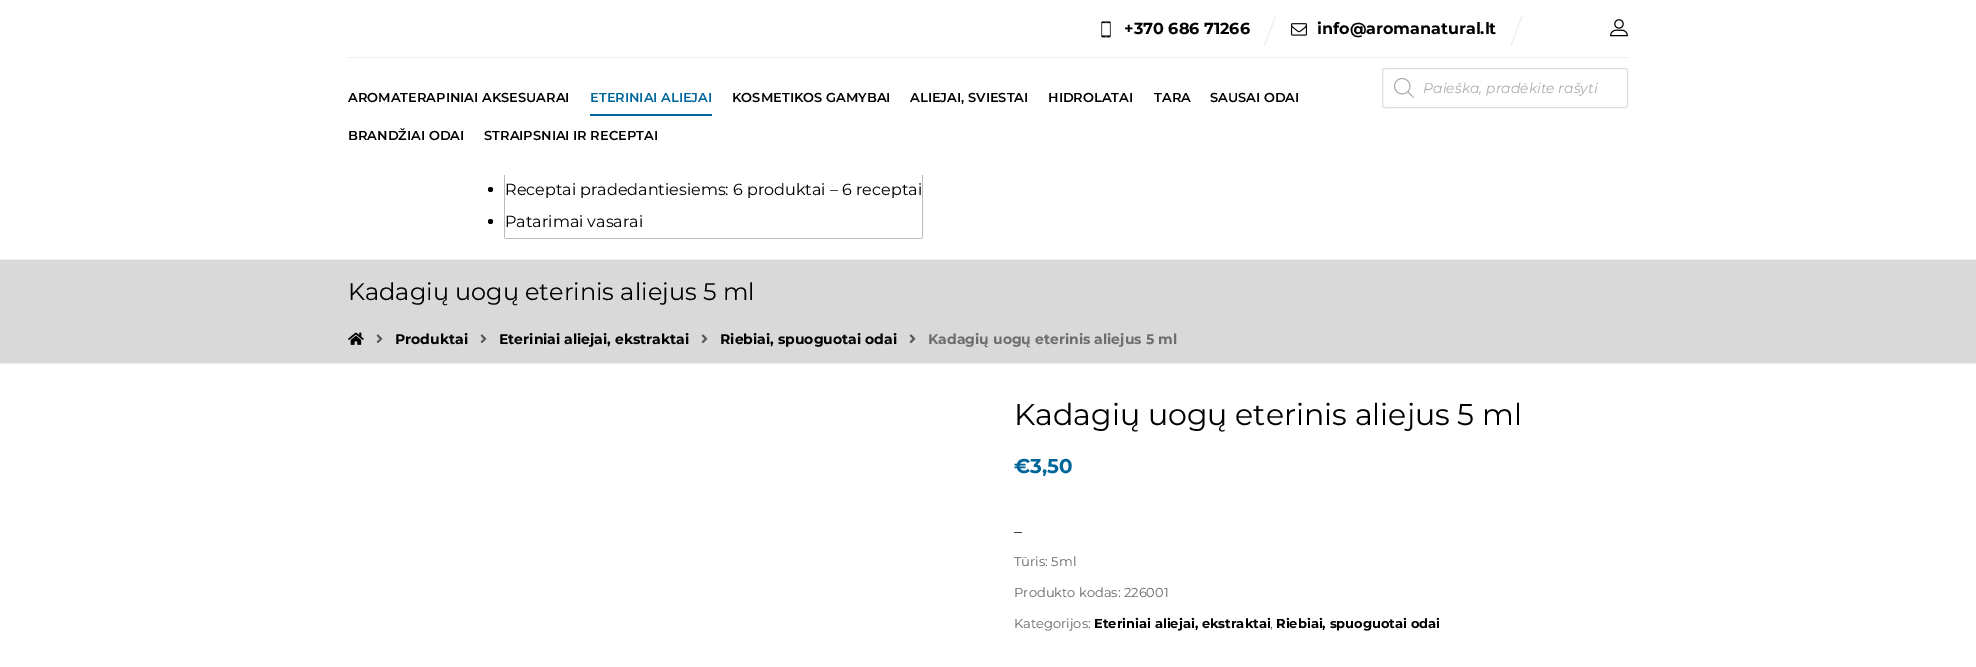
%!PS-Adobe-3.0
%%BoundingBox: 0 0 1976 667
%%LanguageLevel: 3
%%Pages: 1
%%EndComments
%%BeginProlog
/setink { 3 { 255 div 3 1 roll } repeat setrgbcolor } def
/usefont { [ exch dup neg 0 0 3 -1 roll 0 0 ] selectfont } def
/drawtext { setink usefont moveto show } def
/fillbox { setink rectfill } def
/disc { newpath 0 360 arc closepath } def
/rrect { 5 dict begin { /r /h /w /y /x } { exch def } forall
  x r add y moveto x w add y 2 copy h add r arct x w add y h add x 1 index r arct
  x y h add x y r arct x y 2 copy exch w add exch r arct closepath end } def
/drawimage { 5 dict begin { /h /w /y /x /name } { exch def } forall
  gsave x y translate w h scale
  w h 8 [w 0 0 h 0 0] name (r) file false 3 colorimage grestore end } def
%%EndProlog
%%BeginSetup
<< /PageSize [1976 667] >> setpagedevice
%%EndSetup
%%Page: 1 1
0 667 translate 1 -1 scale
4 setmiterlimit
0 0 1976 667 255 255 255 fillbox
348 57 1280 1 239 239 239 fillbox
(assets/img1.rgb) 1101 21 10 17 drawimage
(+370 686 71266) 1124 34 /Montserrat-Bold 16 0 0 0 drawtext
237 237 237 setink
1275 16 moveto 1276 16 lineto 1265 46 lineto 1264 46 lineto closepath fill
(assets/img2.rgb) 1291 23 16 13 drawimage
(info@aromanatural.lt) 1317 34 /Montserrat-Bold 16 0 0 0 drawtext
237 237 237 setink
1521.5 16 moveto 1522.5 16 lineto 1511.5 46 lineto 1510.5 46 lineto closepath fill
(assets/img3.rgb) 1610 19 18 18 drawimage
0 259 1976 1 239 239 239 fillbox
221 221 221 setink
1382.5 68.5 245 39 2.5 rrect stroke
(assets/img4.rgb) 1394 78 20 20 drawimage
(Paieška, pradėkite rašyti) 1423 93 /Montserrat-Italic 14 173 173 173 drawtext
(AROMATERAPINIAI AKSESUARAI) 348 102 /Montserrat-SemiBold 13 0 0 0 drawtext
(ETERINIAI ALIEJAI) 590 102 /Montserrat-SemiBold 13 0 102 153 drawtext
590 114 122 2 0 102 153 fillbox
(KOSMETIKOS GAMYBAI) 732 102 /Montserrat-SemiBold 13 0 0 0 drawtext
(ALIEJAI, SVIESTAI) 910 102 /Montserrat-SemiBold 13 0 0 0 drawtext
(HIDROLATAI) 1048 102 /Montserrat-SemiBold 13 0 0 0 drawtext
(TARA) 1154 102 /Montserrat-SemiBold 13 0 0 0 drawtext
(SAUSAI ODAI) 1210 102 /Montserrat-SemiBold 13 0 0 0 drawtext
(BRANDŽIAI ODAI) 348 140 /Montserrat-SemiBold 13 0 0 0 drawtext
(STRAIPSNIAI IR RECEPTAI) 484 140 /Montserrat-SemiBold 13 0 0 0 drawtext
922 175 1 63 186 186 186 fillbox
505 238 417 1 186 186 186 fillbox
504 175 1 63 186 186 186 fillbox
0 0 0 setink
490.5 189.5 2.5 disc fill
(Receptai pradedantiesiems: 6 produktai – 6 receptai) 505 195 /Montserrat-Regular 16 0 0 0 drawtext
490.5 221.5 2.5 disc fill
(Patarimai vasarai) 505 227 /Montserrat-Regular 16 0 0 0 drawtext
0 260 1976 103 217 217 217 fillbox
0 363 1976 1 239 239 239 fillbox
(Kadagių uogų eterinis aliejus 5 ml) 348 300 /Montserrat-Regular 24 0 0 0 drawtext
(assets/img5.rgb) 348 332 16 13 drawimage
(assets/img6.rgb) 376 334 7 9 drawimage
(Produktai) 395 344 /Montserrat-Bold 14 0 0 0 drawtext
(assets/img6.rgb) 480 334 7 9 drawimage
(Eteriniai aliejai, ekstraktai) 499 344 /Montserrat-Bold 14 0 0 0 drawtext
(assets/img6.rgb) 701 334 7 9 drawimage
(Riebiai, spuoguotai odai) 720 344 /Montserrat-Bold 14 0 0 0 drawtext
(assets/img6.rgb) 909 334 7 9 drawimage
(Kadagių uogų eterinis aliejus 5 ml) 928 344 /Montserrat-Bold 14 109 109 109 drawtext
(Kadagių uogų eterinis aliejus 5 ml) 1014 425 /Montserrat-Regular 30 0 0 0 drawtext
(€3,50) 1014 473 /Montserrat-Bold 20 0 102 153 drawtext
(–) 1014 537 /Montserrat-Regular 16 0 0 0 drawtext
(Tūris: 5ml) 1014 566 /Montserrat-Regular 13 103 103 103 drawtext
(Produkto kodas: 226001) 1014 597 /Montserrat-Regular 13 103 103 103 drawtext
(Kategorijos:) 1014 628 /Montserrat-Regular 13 103 103 103 drawtext
(Eteriniai aliejai, ekstraktai) 1094 628 /Montserrat-Bold 13 0 0 0 drawtext
(,) 1270 628 /Montserrat-Regular 13 103 103 103 drawtext
(Riebiai, spuoguotai odai) 1276 628 /Montserrat-Bold 13 0 0 0 drawtext
showpage
%%EOF
